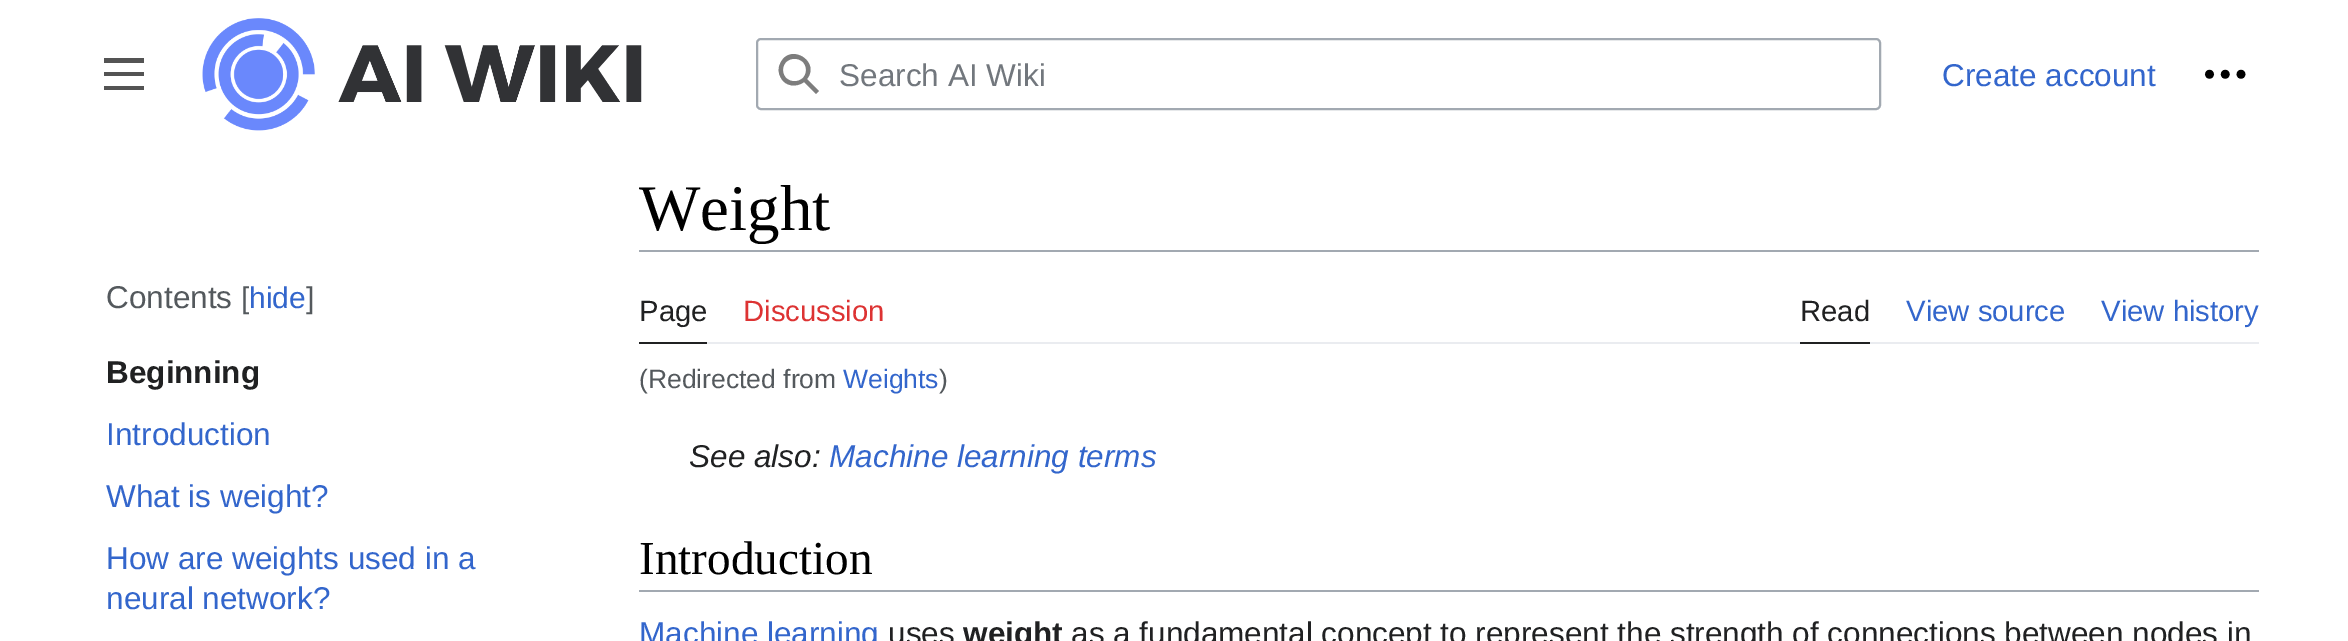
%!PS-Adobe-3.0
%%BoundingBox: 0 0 2348 641
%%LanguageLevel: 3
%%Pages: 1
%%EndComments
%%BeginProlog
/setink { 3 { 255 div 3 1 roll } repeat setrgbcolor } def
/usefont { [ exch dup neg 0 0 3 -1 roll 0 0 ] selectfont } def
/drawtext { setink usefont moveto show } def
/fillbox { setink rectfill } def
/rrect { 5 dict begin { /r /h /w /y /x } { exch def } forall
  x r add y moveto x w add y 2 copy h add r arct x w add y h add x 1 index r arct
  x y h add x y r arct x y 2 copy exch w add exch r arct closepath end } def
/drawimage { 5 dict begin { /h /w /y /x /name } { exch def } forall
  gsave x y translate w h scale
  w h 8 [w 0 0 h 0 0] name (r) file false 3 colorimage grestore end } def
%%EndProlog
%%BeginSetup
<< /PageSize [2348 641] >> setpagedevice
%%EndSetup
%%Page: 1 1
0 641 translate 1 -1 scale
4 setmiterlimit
0 0 2348 641 255 255 255 fillbox
84 84 84 setink
104 58 moveto 104 63 lineto 144 63 lineto 144 58 lineto closepath 104 76 moveto 144 76 lineto 144 72 lineto 104 72 lineto closepath 104 90 moveto 144 90 lineto 144 86 lineto 104 86 lineto closepath fill
(assets/img1.rgb) 202 18 113 113 drawimage
(assets/img2.rgb) 338 45 304 57 drawimage
162 169 177 setink
2 setlinewidth
757 39 1123 70 4 rrect stroke
125 125 125 setink
804 82 moveto 796 88 785 86 781 78 curveto 778 73 778 68 780 64 curveto 789 42 821 61 807 79 curveto 819 91 lineto 816 94 lineto closepath 806 70 moveto 806 85 783 85 783 70 curveto 783 55 806 55 806 70 curveto closepath eofill
(Search AI Wiki) 839 86 /LiberationSans-Regular 31.5 114 119 125 drawtext
(Create account) 1942 86 /LiberationSans-Regular 31.5 51 102 204 drawtext
(assets/img3.rgb) 2204 69 42 10 drawimage
(Contents) 106 308 /LiberationSans-Regular 31.5 84 89 93 drawtext
([) 241 308 /LiberationSans-Regular 30 84 89 93 drawtext
(hide) 249 308 /LiberationSans-Regular 30 51 102 204 drawtext
(]) 306 308 /LiberationSans-Regular 30 84 89 93 drawtext
(Beginning) 106 383 /LiberationSans-Bold 31.5 32 33 34 drawtext
(Introduction) 106 445 /LiberationSans-Regular 31.5 51 102 204 drawtext
(What is weight?) 106 507 /LiberationSans-Regular 31.5 51 102 204 drawtext
(How are weights used in a) 106 569 /LiberationSans-Regular 31.5 51 102 204 drawtext
(neural network?) 106 609 /LiberationSans-Regular 31.5 51 102 204 drawtext
639 250 1620 2 162 169 177 fillbox
(Weight) 639 230 /LiberationSerif-Regular 65 0 0 0 drawtext
707 342 1552 2 234 236 240 fillbox
639 342 68 2 32 33 34 fillbox
(Page) 639 321 /LiberationSans-Regular 29.25 32 33 34 drawtext
(Discussion) 743 321 /LiberationSans-Regular 29.25 221 51 51 drawtext
1800 342 70 2 32 33 34 fillbox
(Read) 1800 321 /LiberationSans-Regular 29.25 32 33 34 drawtext
(View source) 1906 321 /LiberationSans-Regular 29.25 51 102 204 drawtext
(View history) 2101 321 /LiberationSans-Regular 29.25 51 102 204 drawtext
(\(Redirected from) 639 388 /LiberationSans-Regular 26.5 84 89 93 drawtext
(Weights) 843 388 /LiberationSans-Regular 26.5 51 102 204 drawtext
(\)) 939 388 /LiberationSans-Regular 26.5 84 89 93 drawtext
(See also:) 689 467 /LiberationSans-Italic 31.5 32 33 34 drawtext
(Machine learning terms) 829 467 /LiberationSans-Italic 31.5 51 102 204 drawtext
639 590 1620 2 162 169 177 fillbox
(Introduction) 639 574 /LiberationSerif-Regular 47.25 0 0 0 drawtext
(Machine learning) 639 644 /LiberationSans-Regular 31.5 51 102 204 drawtext
(uses) 888 644 /LiberationSans-Regular 31.5 32 33 34 drawtext
(weight) 963 644 /LiberationSans-Bold 31.5 32 33 34 drawtext
(as a fundamental concept to represent the strength of connections between nodes in) 1071 644 /LiberationSans-Regular 31.5 32 33 34 drawtext
showpage
%%EOF
